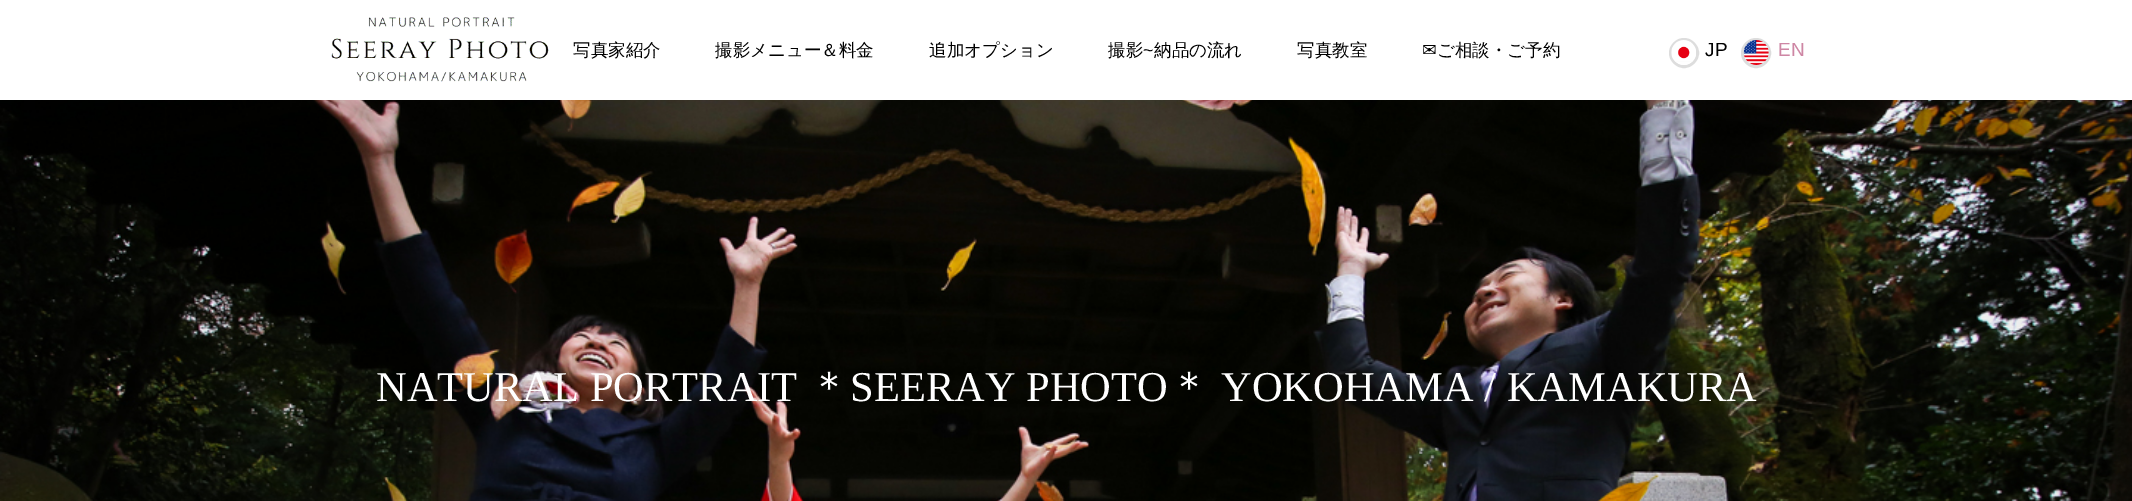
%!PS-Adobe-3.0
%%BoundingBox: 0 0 2132 501
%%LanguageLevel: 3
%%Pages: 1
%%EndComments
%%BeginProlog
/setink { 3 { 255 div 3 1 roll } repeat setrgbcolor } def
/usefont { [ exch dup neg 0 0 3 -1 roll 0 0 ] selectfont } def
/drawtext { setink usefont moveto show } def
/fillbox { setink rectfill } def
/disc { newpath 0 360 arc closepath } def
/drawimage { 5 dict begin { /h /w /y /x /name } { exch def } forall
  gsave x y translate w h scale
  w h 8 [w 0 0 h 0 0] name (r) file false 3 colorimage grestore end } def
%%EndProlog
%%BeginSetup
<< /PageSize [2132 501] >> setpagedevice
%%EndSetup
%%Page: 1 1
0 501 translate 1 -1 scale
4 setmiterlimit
0 0 2132 501 255 255 255 fillbox
(assets/img1.rgb) 331 17 218 65 drawimage
(写真家紹介) 573 56 /WenQuanYiZenHei-Medium 17.5 0 0 0 drawtext
(撮影メニュー＆料金) 715 56 /WenQuanYiZenHei-Medium 17.5 0 0 0 drawtext
(追加オプション) 929 56 /WenQuanYiZenHei-Medium 17.5 0 0 0 drawtext
(撮影) 1108 56 /WenQuanYiZenHei-Medium 17.5 0 0 0 drawtext
(~) 1143 56 /LiberationSans-Regular 17.5 0 0 0 drawtext
(納品の流れ) 1154 56 /WenQuanYiZenHei-Medium 17.5 0 0 0 drawtext
(写真教室) 1297 56 /WenQuanYiZenHei-Medium 17.5 0 0 0 drawtext
(✉) 1422 56 /DejaVuSans-Regular 17.5 0 0 0 drawtext
(ご相談・ご予約) 1437 56 /WenQuanYiZenHei-Medium 17.5 0 0 0 drawtext
221 221 221 setink
3 setlinewidth
1684 53 13.5 disc stroke
(assets/img2.rgb) 1671 40 25 25 drawimage
(JP) 1705 56 /LiberationSans-Regular 19 0 0 0 drawtext
221 221 221 setink
1756 53 13.5 disc stroke
(assets/img3.rgb) 1743 40 26 25 drawimage
(EN) 1778 56 /LiberationSans-Regular 19 206 134 164 drawtext
(assets/img4.rgb) 0 100 2132 401 drawimage
(NATURAL PORTRAIT) 376 401 /LiberationSerif-Regular 42.5 255 255 255 drawtext
(＊) 808 401 /WenQuanYiZenHei-Medium 42.5 255 255 255 drawtext
(SEERAY PHOTO) 850 401 /LiberationSerif-Regular 42.5 255 255 255 drawtext
(＊) 1168 401 /WenQuanYiZenHei-Medium 42.5 255 255 255 drawtext
(YOKOHAMA / KAMAKURA) 1221 401 /LiberationSerif-Regular 42.5 255 255 255 drawtext
showpage
%%EOF
